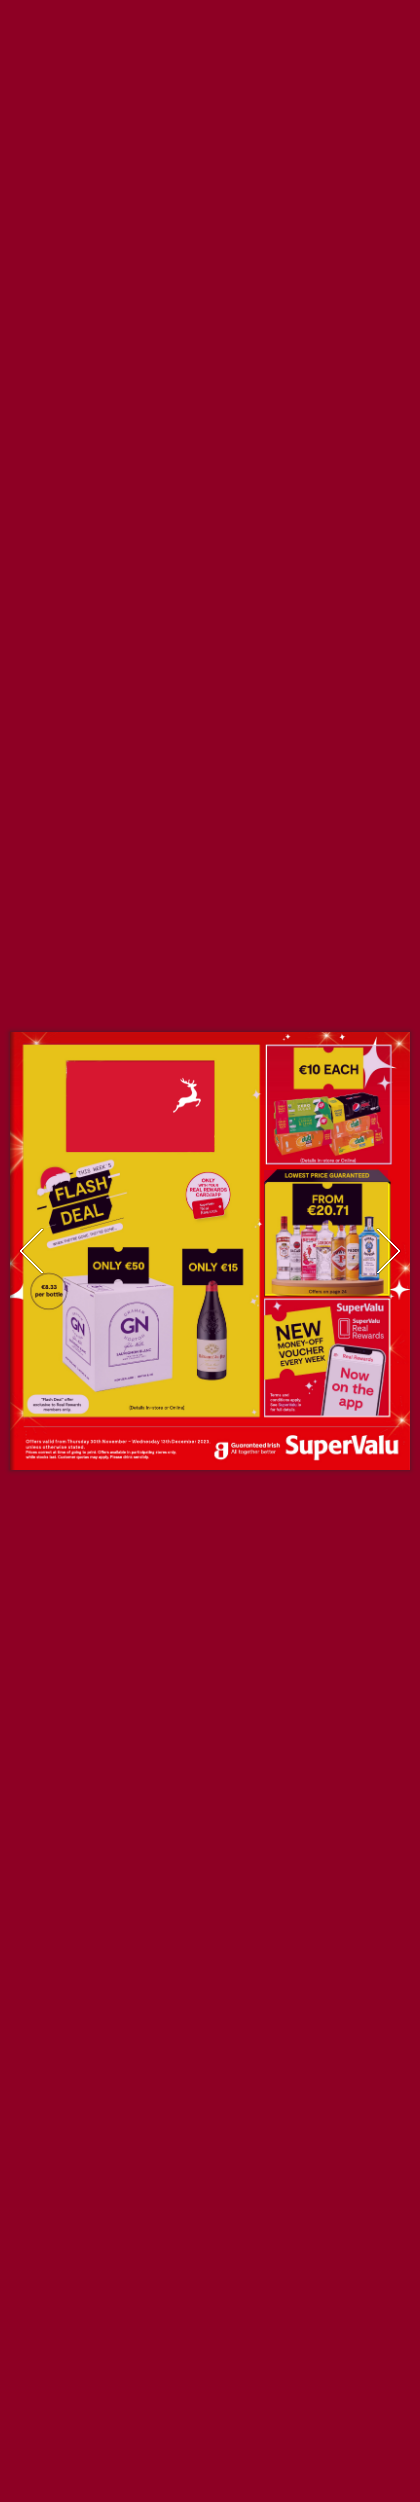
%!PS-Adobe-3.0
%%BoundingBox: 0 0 420 2502
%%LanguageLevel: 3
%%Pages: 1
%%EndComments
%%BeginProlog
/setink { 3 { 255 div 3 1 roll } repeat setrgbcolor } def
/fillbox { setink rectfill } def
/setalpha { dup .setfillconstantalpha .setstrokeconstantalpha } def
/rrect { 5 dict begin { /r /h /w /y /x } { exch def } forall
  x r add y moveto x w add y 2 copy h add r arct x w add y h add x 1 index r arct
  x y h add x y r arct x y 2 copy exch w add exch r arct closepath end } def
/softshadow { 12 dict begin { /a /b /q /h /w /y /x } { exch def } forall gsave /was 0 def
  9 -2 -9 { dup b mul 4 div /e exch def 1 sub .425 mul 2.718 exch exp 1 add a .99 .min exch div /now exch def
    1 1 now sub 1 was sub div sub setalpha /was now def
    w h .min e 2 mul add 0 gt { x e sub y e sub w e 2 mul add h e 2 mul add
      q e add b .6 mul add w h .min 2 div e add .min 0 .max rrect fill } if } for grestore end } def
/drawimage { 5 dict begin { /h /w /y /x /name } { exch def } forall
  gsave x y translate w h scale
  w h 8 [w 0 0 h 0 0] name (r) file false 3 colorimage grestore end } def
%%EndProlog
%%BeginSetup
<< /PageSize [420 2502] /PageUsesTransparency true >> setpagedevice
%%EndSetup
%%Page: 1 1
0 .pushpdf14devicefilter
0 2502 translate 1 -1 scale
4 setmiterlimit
0 0 420 2502 142 0 36 fillbox
40 40 40 setink
10 1032 400 438 0 2.5 0.7 softshadow
(assets/img3.rgb) 409 1032 1 438 drawimage
(assets/img1.rgb) 10 1032 400 438 drawimage
0.19 setalpha
23 1043 236 376 128 0 128 fillbox
267 1045 125 120 128 0 128 fillbox
1 setalpha
(assets/img2.rgb) 66 1061 148 91 drawimage
0.19 setalpha
264 1170 124 124 128 0 128 fillbox
279 1402 19 5 128 0 128 fillbox
263 1299 125 117 128 0 128 fillbox
1 setalpha
(assets/img4.rgb) 19 1228 25 46 drawimage
(assets/img5.rgb) 376 1228 25 46 drawimage
.poppdf14devicefilter showpage
%%EOF
